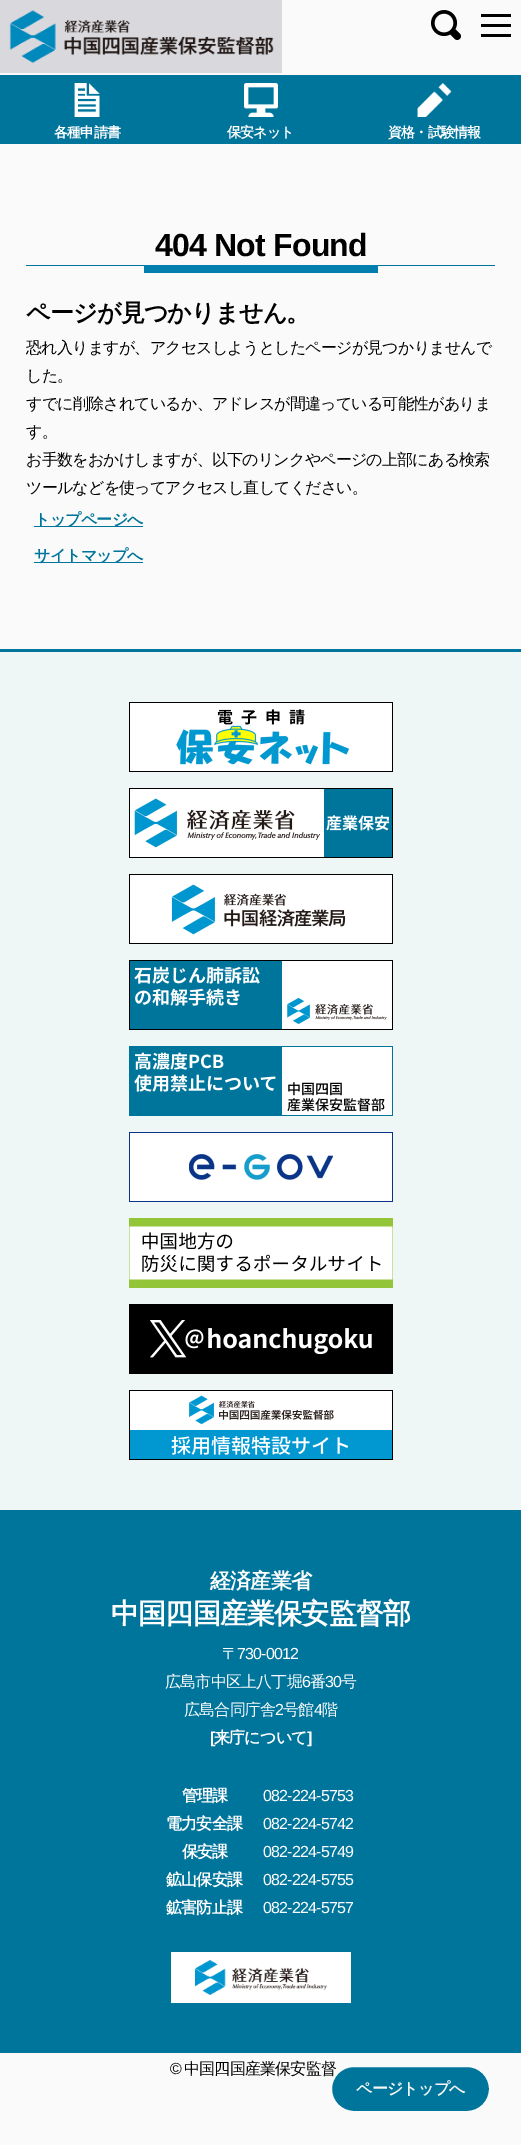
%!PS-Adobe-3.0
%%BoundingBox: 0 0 521 2145
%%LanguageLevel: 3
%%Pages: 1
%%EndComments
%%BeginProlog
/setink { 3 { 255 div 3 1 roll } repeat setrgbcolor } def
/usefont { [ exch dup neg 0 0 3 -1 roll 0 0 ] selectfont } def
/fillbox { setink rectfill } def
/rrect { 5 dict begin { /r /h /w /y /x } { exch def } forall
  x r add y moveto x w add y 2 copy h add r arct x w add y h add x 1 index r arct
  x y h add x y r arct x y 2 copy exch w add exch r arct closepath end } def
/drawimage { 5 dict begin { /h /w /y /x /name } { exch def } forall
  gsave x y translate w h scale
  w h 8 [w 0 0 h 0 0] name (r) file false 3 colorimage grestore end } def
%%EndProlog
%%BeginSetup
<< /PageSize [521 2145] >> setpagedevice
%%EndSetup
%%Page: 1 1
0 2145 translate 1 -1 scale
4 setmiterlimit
0 0 521 2145 250 250 250 fillbox
0 0 282 73 217 217 221 fillbox
(assets/img1.rgb) 9 10 265 53 drawimage
(assets/img2.rgb) 431 10 30 30 drawimage
481 24 30 3 0 0 0 fillbox
481 14 30 3 0 0 0 fillbox
481 34 30 3 0 0 0 fillbox
0 75 521 69 0 117 156 fillbox
(assets/img3.rgb) 74 83 26 34 drawimage
/WenQuanYiZenHei-Bold 14 usefont
255 255 255 setink
54 137 moveto -0.8 0 (各種申請書) ashow
(assets/img4.rgb) 244 83 34 34 drawimage
227 137 moveto -0.8 0 (保安ネット) ashow
(assets/img5.rgb) 417 83 35 34 drawimage
388 137 moveto -0.8 0 (資格・試験情報) ashow
26 265 469 1 0 117 156 fillbox
/LiberationSans-Bold 32 usefont
0 0 0 setink
155 256 moveto -0.8 0 (404 Not Found) ashow
144 265 234 8 0 127 175 fillbox
/WenQuanYiZenHei-Bold 24 usefont
0 0 0 setink
26 321 moveto -0.8 0 (ページが見つかりません。) ashow
/WenQuanYiZenHei-Medium 16 usefont
26 353 moveto -0.8 0 (恐れ入りますが、アクセスしようとしたページが見つかりませんで) ashow
26 381 moveto -0.8 0 (した。) ashow
26 409 moveto -0.8 0 (すでに削除されているか、アドレスが間違っている可能性がありま) ashow
26 437 moveto -0.8 0 (す。) ashow
26 465 moveto -0.8 0 (お手数をおかけしますが、以下のリンクやページの上部にある検索) ashow
26 493 moveto -0.8 0 (ツールなどを使ってアクセスし直してください。) ashow
34 526 109 1 0 117 156 fillbox
/WenQuanYiZenHei-Bold 16 usefont
34 525 moveto -0.8 0 (トップページへ) ashow
34 562 109 1 0 117 156 fillbox
34 561 moveto -0.8 0 (サイトマップへ) ashow
0 649 521 1404 0 117 156 fillbox
0 652 521 858 238 246 246 fillbox
(assets/img6.rgb) 129 702 264 70 drawimage
(assets/img7.rgb) 129 788 264 70 drawimage
(assets/img8.rgb) 129 874 264 70 drawimage
(assets/img9.rgb) 129 960 264 70 drawimage
(assets/img10.rgb) 129 1046 264 70 drawimage
(assets/img11.rgb) 129 1132 264 70 drawimage
(assets/img12.rgb) 129 1218 264 70 drawimage
(assets/img13.rgb) 129 1304 264 70 drawimage
(assets/img14.rgb) 129 1390 264 70 drawimage
/WenQuanYiZenHei-Bold 21 usefont
255 255 255 setink
210 1588 moveto -0.8 0 (経済産業省) ashow
/WenQuanYiZenHei-Bold 28 usefont
111 1623 moveto -0.8 0 (中国四国産業保安監督部) ashow
/WenQuanYiZenHei-Medium 16 usefont
222 1659 moveto -0.8 0 (〒) ashow
/LiberationSans-Regular 16 usefont
237 1659 moveto -0.8 0 (730-0012) ashow
/WenQuanYiZenHei-Medium 16 usefont
165 1687 moveto -0.8 0 (広島市中区上八丁堀) ashow
/LiberationSans-Regular 16 usefont
302 1687 moveto -0.8 0 (6) ashow
/WenQuanYiZenHei-Medium 16 usefont
310 1687 moveto -0.8 0 (番) ashow
/LiberationSans-Regular 16 usefont
325 1687 moveto -0.8 0 (30) ashow
/WenQuanYiZenHei-Medium 16 usefont
341 1687 moveto -0.8 0 (号) ashow
184 1715 moveto -0.8 0 (広島合同庁舎) ashow
/LiberationSans-Regular 16 usefont
275 1715 moveto -0.8 0 (2) ashow
/WenQuanYiZenHei-Medium 16 usefont
283 1715 moveto -0.8 0 (号館) ashow
/LiberationSans-Regular 16 usefont
314 1715 moveto -0.8 0 (4) ashow
/WenQuanYiZenHei-Medium 16 usefont
322 1715 moveto -0.8 0 (階) ashow
/LiberationSans-Bold 16 usefont
210 1743 moveto -0.8 0 ([) ashow
/WenQuanYiZenHei-Bold 16 usefont
214 1743 moveto -0.8 0 (来庁について) ashow
/LiberationSans-Bold 16 usefont
307 1743 moveto -0.8 0 (]) ashow
/WenQuanYiZenHei-Bold 16 usefont
182 1801 moveto -0.8 0 (管理課) ashow
/LiberationSans-Regular 16 usefont
263 1801 moveto -0.8 0 (082-224-5753) ashow
/WenQuanYiZenHei-Bold 16 usefont
166 1829 moveto -0.8 0 (電力安全課) ashow
/LiberationSans-Regular 16 usefont
263 1829 moveto -0.8 0 (082-224-5742) ashow
/WenQuanYiZenHei-Bold 16 usefont
182 1857 moveto -0.8 0 (保安課) ashow
/LiberationSans-Regular 16 usefont
263 1857 moveto -0.8 0 (082-224-5749) ashow
/WenQuanYiZenHei-Bold 16 usefont
166 1885 moveto -0.8 0 (鉱山保安課) ashow
/LiberationSans-Regular 16 usefont
263 1885 moveto -0.8 0 (082-224-5755) ashow
/WenQuanYiZenHei-Bold 16 usefont
166 1913 moveto -0.8 0 (鉱害防止課) ashow
/LiberationSans-Regular 16 usefont
263 1913 moveto -0.8 0 (082-224-5757) ashow
171 1952 180 51 255 255 255 fillbox
(assets/img15.rgb) 195 1960 132 35 drawimage
0 0 0 setink
170 2074 moveto -0.8 0 (©) ashow
/WenQuanYiZenHei-Medium 16 usefont
184 2074 moveto -0.8 0 (中国四国産業保安監督) ashow
0 117 156 setink
331 2066 159 46 23 rrect gsave fill grestore
250 250 250 setink
2 setlinewidth
stroke
/WenQuanYiZenHei-Bold 16 usefont
245 245 245 setink
356 2094 moveto -0.8 0 (ページトップへ) ashow
showpage
%%EOF
